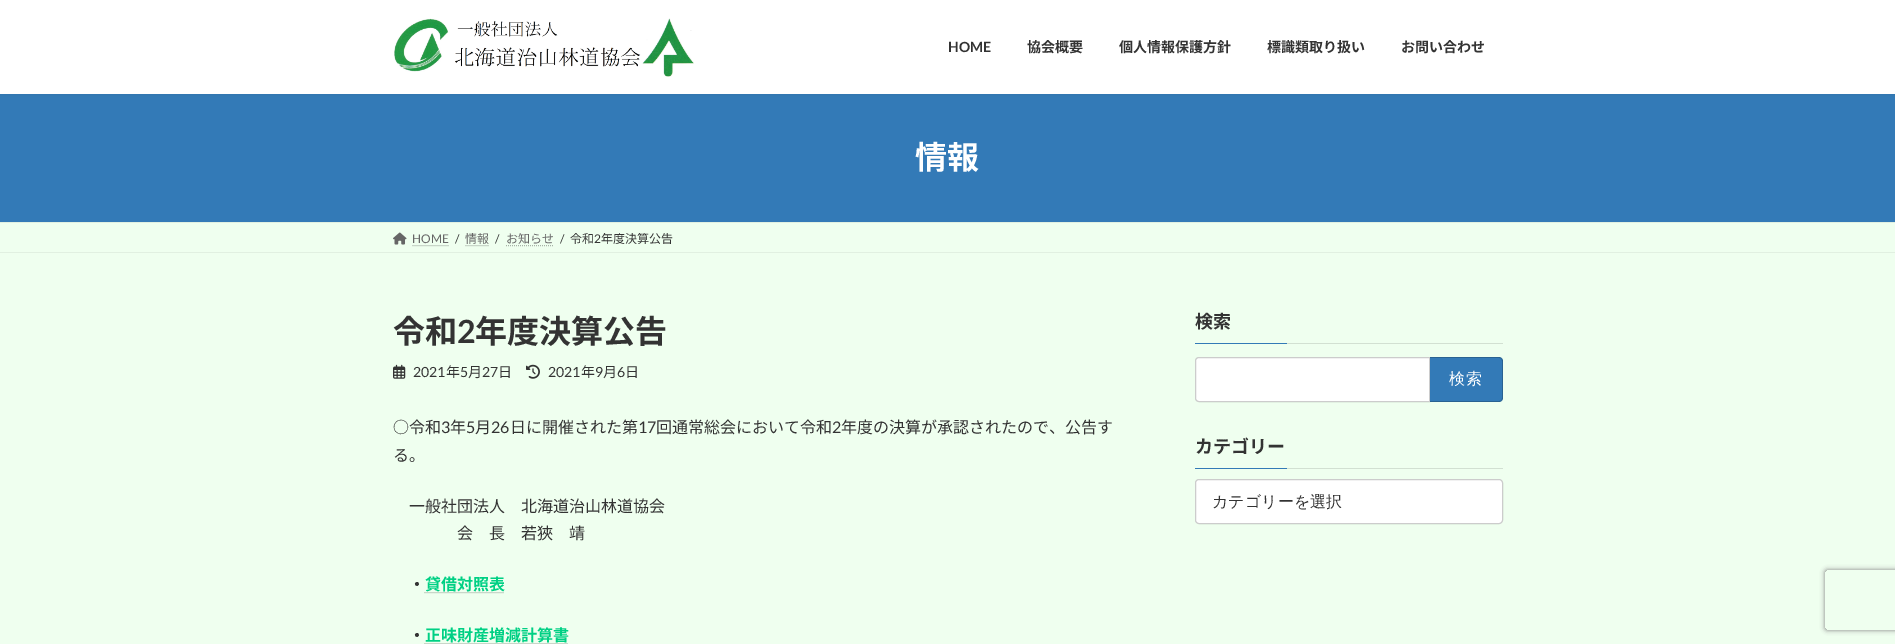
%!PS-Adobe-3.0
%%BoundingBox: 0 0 1895 644
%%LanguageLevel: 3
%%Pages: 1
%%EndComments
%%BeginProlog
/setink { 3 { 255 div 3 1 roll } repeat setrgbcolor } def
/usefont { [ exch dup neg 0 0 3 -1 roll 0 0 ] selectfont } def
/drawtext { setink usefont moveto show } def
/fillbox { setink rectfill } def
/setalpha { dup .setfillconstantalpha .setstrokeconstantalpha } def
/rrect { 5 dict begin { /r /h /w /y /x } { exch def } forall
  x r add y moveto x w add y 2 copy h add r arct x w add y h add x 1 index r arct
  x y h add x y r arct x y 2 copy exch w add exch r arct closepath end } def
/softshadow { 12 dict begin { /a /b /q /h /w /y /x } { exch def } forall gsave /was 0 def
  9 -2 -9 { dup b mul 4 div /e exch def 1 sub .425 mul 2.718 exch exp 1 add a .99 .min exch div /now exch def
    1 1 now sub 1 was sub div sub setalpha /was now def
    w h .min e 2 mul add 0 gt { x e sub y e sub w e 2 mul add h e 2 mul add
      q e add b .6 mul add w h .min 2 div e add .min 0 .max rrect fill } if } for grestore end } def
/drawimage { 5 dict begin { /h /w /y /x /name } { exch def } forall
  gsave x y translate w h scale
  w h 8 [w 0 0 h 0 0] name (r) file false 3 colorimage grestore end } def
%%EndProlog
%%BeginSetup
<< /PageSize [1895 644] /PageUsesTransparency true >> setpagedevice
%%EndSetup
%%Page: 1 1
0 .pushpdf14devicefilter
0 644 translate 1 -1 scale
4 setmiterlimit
0 0 1895 644 239 255 239 fillbox
0 94 1895 128 51 122 183 fillbox
0 0 0 setink
0 1 1895 94 0 1.5 0.05 softshadow
0 0 1895 94 255 255 255 fillbox
(assets/img1.rgb) 394 18 300 59 drawimage
(HOME) 948 52 /Lato-Bold 14 51 51 51 drawtext
(協会概要) 1027 52 /NotoSansJP-Bold 14 51 51 51 drawtext
(個人情報保護方針) 1119 52 /NotoSansJP-Bold 14 51 51 51 drawtext
(標識類取り扱い) 1267 52 /NotoSansJP-Bold 14 51 51 51 drawtext
(お問い合わせ) 1401 52 /NotoSansJP-Bold 14 51 51 51 drawtext
(情報) 915 169 /NotoSansJP-Bold 32 255 255 255 drawtext
0 222 1895 1 225 240 225 fillbox
0 252 1895 1 225 240 225 fillbox
(assets/img2.rgb) 393 232 14 13 drawimage
(HOME) 412 243 /Lato-Regular 12 102 102 102 drawtext
167 179 167 setink
[1 1] 0 setdash
412.5 245.5 moveto 449 245.5 lineto stroke
(/) 455 243 /Lato-Regular 12 51 51 51 drawtext
(情報) 465 243 /NotoSansJP-Regular 12 102 102 102 drawtext
167 179 167 setink
465.5 245.5 moveto 489.5 245.5 lineto stroke
(/) 495 243 /Lato-Regular 12 51 51 51 drawtext
(お知らせ) 506 243 /NotoSansJP-Regular 12 102 102 102 drawtext
167 179 167 setink
506 245.5 moveto 554 245.5 lineto stroke
(/) 560 243 /Lato-Regular 12 51 51 51 drawtext
(令和) 570 243 /NotoSansJP-Regular 12 51 51 51 drawtext
(2) 594 243 /Lato-Regular 12 51 51 51 drawtext
(年度決算公告) 601 243 /NotoSansJP-Regular 12 51 51 51 drawtext
(令和) 393 343 /NotoSansJP-Bold 32 51 51 51 drawtext
(2) 457 343 /Lato-Bold 32 51 51 51 drawtext
(年度決算公告) 475 343 /NotoSansJP-Bold 32 51 51 51 drawtext
(assets/img3.rgb) 393 364 13 15 drawimage
(2021) 413 377 /Lato-Regular 14 51 51 51 drawtext
(年) 446 377 /NotoSansJP-Regular 14 51 51 51 drawtext
(5) 460 377 /Lato-Regular 14 51 51 51 drawtext
(月) 468 377 /NotoSansJP-Regular 14 51 51 51 drawtext
(27) 482 377 /Lato-Regular 14 51 51 51 drawtext
(日) 498 377 /NotoSansJP-Regular 14 51 51 51 drawtext
(assets/img4.rgb) 526 364 14 15 drawimage
(2021) 548 377 /Lato-Regular 14 51 51 51 drawtext
(年) 581 377 /NotoSansJP-Regular 14 51 51 51 drawtext
(9) 595 377 /Lato-Regular 14 51 51 51 drawtext
(月) 603 377 /NotoSansJP-Regular 14 51 51 51 drawtext
(6) 617 377 /Lato-Regular 14 51 51 51 drawtext
(日) 625 377 /NotoSansJP-Regular 14 51 51 51 drawtext
(○令和) 393 433 /NotoSansJP-Regular 16 51 51 51 drawtext
(3) 441 433 /Lato-Regular 16 51 51 51 drawtext
(年) 450 433 /NotoSansJP-Regular 16 51 51 51 drawtext
(5) 466 433 /Lato-Regular 16 51 51 51 drawtext
(月) 475 433 /NotoSansJP-Regular 16 51 51 51 drawtext
(26) 491 433 /Lato-Regular 16 51 51 51 drawtext
(日に開催された第) 510 433 /NotoSansJP-Regular 16 51 51 51 drawtext
(17) 638 433 /Lato-Regular 16 51 51 51 drawtext
(回通常総会において令和) 656 433 /NotoSansJP-Regular 16 51 51 51 drawtext
(2) 832 433 /Lato-Regular 16 51 51 51 drawtext
(年度の決算が承認されたので、公告す) 841 433 /NotoSansJP-Regular 16 51 51 51 drawtext
(る。) 393 461 /NotoSansJP-Regular 16 51 51 51 drawtext
(一般社団法人　北海道治山林道協会) 409 512 /NotoSansJP-Regular 16 51 51 51 drawtext
(会　長　若狹　靖) 457 539 /NotoSansJP-Regular 16 51 51 51 drawtext
(・) 409 590 /NotoSansJP-Bold 16 51 51 51 drawtext
(貸借対照表) 425 590 /NotoSansJP-Bold 16 0 208 132 drawtext
167 179 167 setink
424.5 592.5 moveto 504.5 592.5 lineto stroke
(・) 409 641 /NotoSansJP-Bold 16 51 51 51 drawtext
(正味財産増減計算書) 425 641 /NotoSansJP-Bold 16 0 208 132 drawtext
167 179 167 setink
424.5 643.5 moveto 568.5 643.5 lineto stroke
1287 343 216 1 210 224 210 fillbox
(検索) 1195 328 /NotoSansJP-Bold 18 51 51 51 drawtext
1195 343 92 1 51 122 183 fillbox
255 255 255 setink
1199 357 moveto 1430 357 lineto 1430 402 lineto 1199 402 lineto 1197 402 1195 400 1195 398 curveto 1195 361 lineto 1195 359 1197 357 1199 357 curveto closepath fill
0.2 setalpha
0 0 0 setink
[] 0 setdash
1199 357.5 moveto 1429.5 357.5 lineto 1429.5 401.5 lineto 1199 401.5 lineto 1197 401.5 1195.5 400 1195.5 398 curveto 1195.5 361 lineto 1195.5 359 1197 357.5 1199 357.5 curveto closepath stroke
1 setalpha
51 122 183 setink
1430 357 moveto 1499 357 lineto 1501 357 1503 359 1503 361 curveto 1503 398 lineto 1503 400 1501 402 1499 402 curveto 1430 402 lineto closepath fill
0.2 setalpha
0 0 0 setink
1430 357 moveto 1499 357 lineto 1501 357 1503 359 1503 361 curveto 1503 398 lineto 1503 400 1501 402 1499 402 curveto 1430 402 lineto closepath 1430 358 moveto 1499 358 lineto 1501 358 1502 359 1502 361 curveto 1502 398 lineto 1502 400 1501 401 1499 401 curveto 1430 401 lineto closepath eofill
/WenQuanYiZenHei-Medium 16 usefont
1 setalpha
255 255 255 setink
1449 384 moveto 1 0 (検索) ashow
1287 468 216 1 210 224 210 fillbox
(カテゴリー) 1195 453 /NotoSansJP-Bold 18 51 51 51 drawtext
1195 468 92 1 51 122 183 fillbox
255 255 255 setink
1195 479 308 45 4 rrect fill
0.2 setalpha
0 0 0 setink
1195.5 479.5 307 44 3.5 rrect stroke
1 setalpha
(カテゴリーを選択) 1212 507 /WenQuanYiZenHei-Medium 16 51 51 51 drawtext
gsave
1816 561 moveto 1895 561 lineto 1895 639 lineto 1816 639 lineto closepath 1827 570 moveto 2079 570 lineto 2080 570 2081 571 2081 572 curveto 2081 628 lineto 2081 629 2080 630 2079 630 curveto 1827 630 lineto 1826 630 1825 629 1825 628 curveto 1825 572 lineto 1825 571 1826 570 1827 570 curveto closepath eoclip newpath
128 128 128 setink
1825 570 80 60 2 2.5 1 softshadow
grestore
.poppdf14devicefilter showpage
%%EOF
